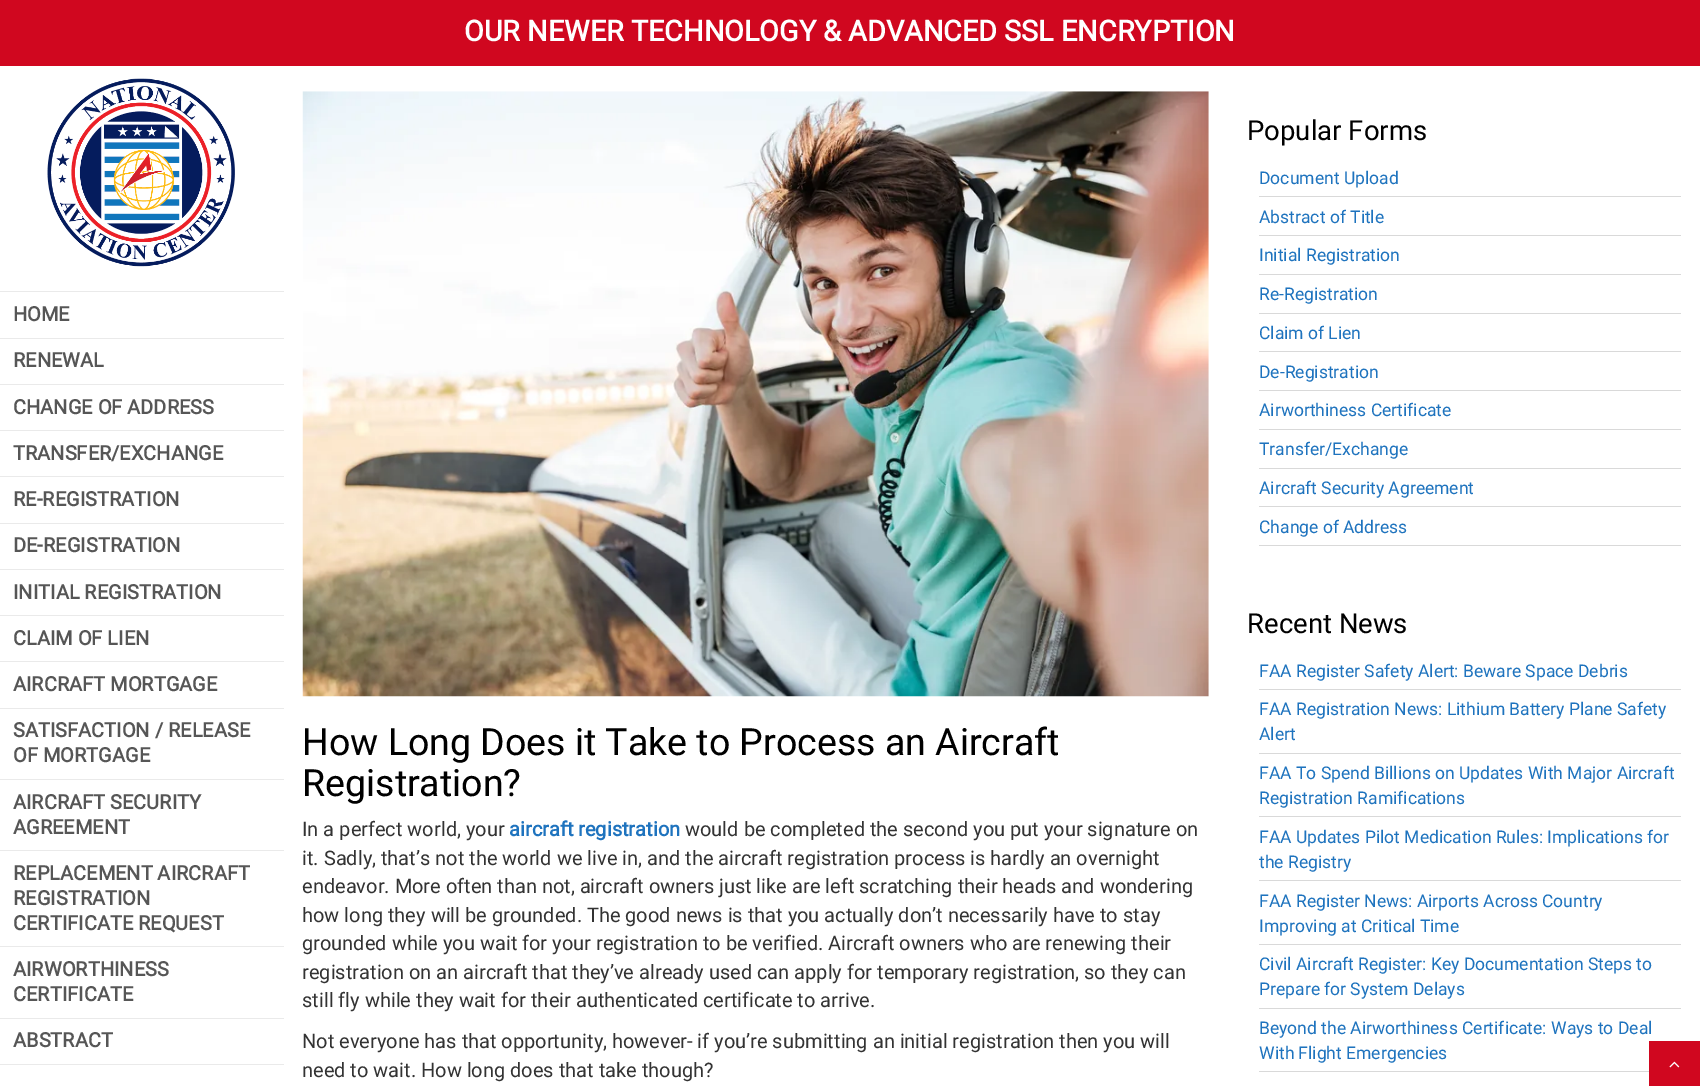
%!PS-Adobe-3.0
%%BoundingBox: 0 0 1700 1086
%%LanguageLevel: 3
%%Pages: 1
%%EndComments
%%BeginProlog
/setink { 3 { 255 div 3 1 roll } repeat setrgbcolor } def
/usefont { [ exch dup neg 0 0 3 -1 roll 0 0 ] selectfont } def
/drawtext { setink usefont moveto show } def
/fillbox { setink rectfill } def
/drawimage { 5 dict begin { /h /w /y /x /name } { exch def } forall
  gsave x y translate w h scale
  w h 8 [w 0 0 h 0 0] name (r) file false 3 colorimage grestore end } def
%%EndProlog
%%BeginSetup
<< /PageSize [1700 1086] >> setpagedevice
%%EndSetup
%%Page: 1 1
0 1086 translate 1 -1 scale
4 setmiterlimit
0 0 1700 1086 255 255 255 fillbox
0 0 1700 66 208 7 31 fillbox
(OUR NEWER TECHNOLOGY & ADVANCED SSL ENCRYPTION) 464 41 /Roboto-Bold 28.75 255 255 255 drawtext
(assets/img1.rgb) 47 78 188 189 drawimage
0 291 284 1 234 234 234 fillbox
(HOME) 13 321 /Roboto-Bold 20 86 86 86 drawtext
0 338 284 1 234 234 234 fillbox
(RENEWAL) 13 367 /Roboto-Bold 20 86 86 86 drawtext
0 384 284 1 234 234 234 fillbox
(CHANGE OF ADDRESS) 13 414 /Roboto-Bold 20 86 86 86 drawtext
0 430 284 1 234 234 234 fillbox
(TRANSFER/EXCHANGE) 13 460 /Roboto-Bold 20 86 86 86 drawtext
0 476 284 1 234 234 234 fillbox
(RE-REGISTRATION) 13 506 /Roboto-Bold 20 86 86 86 drawtext
0 523 284 1 234 234 234 fillbox
(DE-REGISTRATION) 13 552 /Roboto-Bold 20 86 86 86 drawtext
0 569 284 1 234 234 234 fillbox
(INITIAL REGISTRATION) 13 599 /Roboto-Bold 20 86 86 86 drawtext
0 615 284 1 234 234 234 fillbox
(CLAIM OF LIEN) 13 645 /Roboto-Bold 20 86 86 86 drawtext
0 661 284 1 234 234 234 fillbox
(AIRCRAFT MORTGAGE) 13 691 /Roboto-Bold 20 86 86 86 drawtext
0 708 284 1 234 234 234 fillbox
(SATISFACTION / RELEASE) 13 737 /Roboto-Bold 20 86 86 86 drawtext
(OF MORTGAGE) 13 762 /Roboto-Bold 20 86 86 86 drawtext
0 779 284 1 234 234 234 fillbox
(AIRCRAFT SECURITY) 13 809 /Roboto-Bold 20 86 86 86 drawtext
(AGREEMENT) 13 834 /Roboto-Bold 20 86 86 86 drawtext
0 850 284 1 234 234 234 fillbox
(REPLACEMENT AIRCRAFT) 13 880 /Roboto-Bold 20 86 86 86 drawtext
(REGISTRATION) 13 905 /Roboto-Bold 20 86 86 86 drawtext
(CERTIFICATE REQUEST) 13 930 /Roboto-Bold 20 86 86 86 drawtext
0 946 284 1 234 234 234 fillbox
(AIRWORTHINESS) 13 976 /Roboto-Bold 20 86 86 86 drawtext
(CERTIFICATE) 13 1001 /Roboto-Bold 20 86 86 86 drawtext
0 1018 284 1 234 234 234 fillbox
(ABSTRACT) 13 1047 /Roboto-Bold 20 86 86 86 drawtext
0 1064 284 1 234 234 234 fillbox
(assets/img2.rgb) 302 91 907 606 drawimage
(How Long Does it Take to Process an Aircraft) 302 755 /Roboto-Regular 37.5 0 0 0 drawtext
(Registration?) 302 796 /Roboto-Regular 37.5 0 0 0 drawtext
(In a perfect world, your) 302 836 /Roboto-Regular 20 51 51 51 drawtext
(aircraft registration) 509 836 /Roboto-Bold 20 30 115 190 drawtext
(would be completed the second you put your signature on) 685 836 /Roboto-Regular 20 51 51 51 drawtext
(it. Sadly, that’s not the world we live in, and the aircraft registration process is hardly an overnight) 302 865 /Roboto-Regular 20 51 51 51 drawtext
(endeavor. More often than not, aircraft owners just like are left scratching their heads and wondering) 302 893 /Roboto-Regular 20 51 51 51 drawtext
(how long they will be grounded. The good news is that you actually don’t necessarily have to stay) 302 922 /Roboto-Regular 20 51 51 51 drawtext
(grounded while you wait for your registration to be verified. Aircraft owners who are renewing their) 302 950 /Roboto-Regular 20 51 51 51 drawtext
(registration on an aircraft that they’ve already used can apply for temporary registration, so they can) 302 979 /Roboto-Regular 20 51 51 51 drawtext
(still fly while they wait for their authenticated certificate to arrive.) 302 1007 /Roboto-Regular 20 51 51 51 drawtext
(Not everyone has that opportunity, however- if you’re submitting an initial registration then you will) 302 1048 /Roboto-Regular 20 51 51 51 drawtext
(need to wait. How long does that take though?) 302 1077 /Roboto-Regular 20 51 51 51 drawtext
(Popular Forms) 1247 140 /Roboto-Regular 27.5 0 0 0 drawtext
1259 196 422 1 217 217 217 fillbox
(Document Upload) 1259 184 /Roboto-Regular 17.5 30 115 190 drawtext
1259 235 422 1 217 217 217 fillbox
(Abstract of Title) 1259 223 /Roboto-Regular 17.5 30 115 190 drawtext
1259 274 422 1 217 217 217 fillbox
(Initial Registration) 1259 261 /Roboto-Regular 17.5 30 115 190 drawtext
1259 313 422 1 217 217 217 fillbox
(Re-Registration) 1259 300 /Roboto-Regular 17.5 30 115 190 drawtext
1259 351 422 1 217 217 217 fillbox
(Claim of Lien) 1259 339 /Roboto-Regular 17.5 30 115 190 drawtext
1259 390 422 1 217 217 217 fillbox
(De-Registration) 1259 378 /Roboto-Regular 17.5 30 115 190 drawtext
1259 429 422 1 217 217 217 fillbox
(Airworthiness Certificate) 1259 416 /Roboto-Regular 17.5 30 115 190 drawtext
1259 468 422 1 217 217 217 fillbox
(Transfer/Exchange) 1259 455 /Roboto-Regular 17.5 30 115 190 drawtext
1259 506 422 1 217 217 217 fillbox
(Aircraft Security Agreement) 1259 494 /Roboto-Regular 17.5 30 115 190 drawtext
1259 545 422 1 217 217 217 fillbox
(Change of Address) 1259 533 /Roboto-Regular 17.5 30 115 190 drawtext
(Recent News) 1247 633 /Roboto-Regular 27.5 0 0 0 drawtext
1259 689 422 1 217 217 217 fillbox
(FAA Register Safety Alert: Beware Space Debris) 1259 677 /Roboto-Regular 17.5 30 115 190 drawtext
1259 753 422 1 217 217 217 fillbox
(FAA Registration News: Lithium Battery Plane Safety) 1259 715 /Roboto-Regular 17.5 30 115 190 drawtext
(Alert) 1259 740 /Roboto-Regular 17.5 30 115 190 drawtext
1259 816 422 1 217 217 217 fillbox
(FAA To Spend Billions on Updates With Major Aircraft) 1259 779 /Roboto-Regular 17.5 30 115 190 drawtext
(Registration Ramifications) 1259 804 /Roboto-Regular 17.5 30 115 190 drawtext
1259 880 422 1 217 217 217 fillbox
(FAA Updates Pilot Medication Rules: Implications for) 1259 843 /Roboto-Regular 17.5 30 115 190 drawtext
(the Registry) 1259 868 /Roboto-Regular 17.5 30 115 190 drawtext
1259 944 422 1 217 217 217 fillbox
(FAA Register News: Airports Across Country) 1259 907 /Roboto-Regular 17.5 30 115 190 drawtext
(Improving at Critical Time) 1259 932 /Roboto-Regular 17.5 30 115 190 drawtext
1259 1008 422 1 217 217 217 fillbox
(Civil Aircraft Register: Key Documentation Steps to) 1259 970 /Roboto-Regular 17.5 30 115 190 drawtext
(Prepare for System Delays) 1259 995 /Roboto-Regular 17.5 30 115 190 drawtext
1259 1071 390 1 217 217 217 fillbox
(Beyond the Airworthiness Certificate: Ways to Deal) 1259 1034 /Roboto-Regular 17.5 30 115 190 drawtext
(With Flight Emergencies) 1259 1059 /Roboto-Regular 17.5 30 115 190 drawtext
1649 1041 51 45 208 7 31 fillbox
(assets/img3.rgb) 1669 1061 11 7 drawimage
showpage
%%EOF
